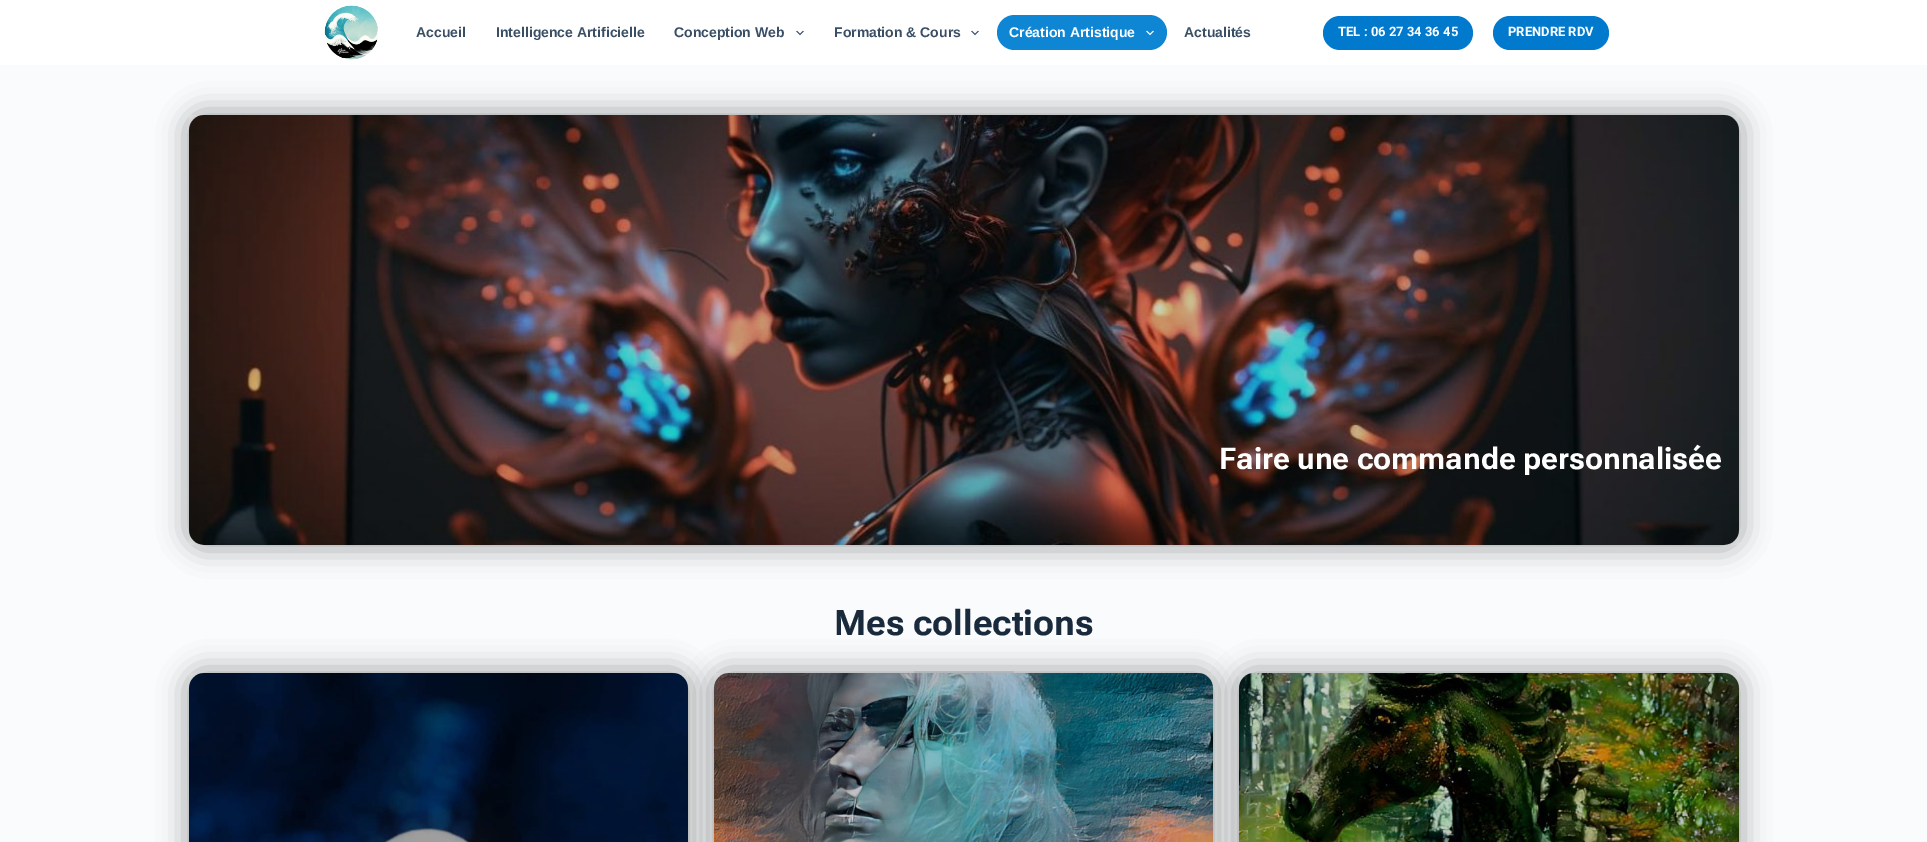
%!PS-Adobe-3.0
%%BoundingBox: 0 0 1927 842
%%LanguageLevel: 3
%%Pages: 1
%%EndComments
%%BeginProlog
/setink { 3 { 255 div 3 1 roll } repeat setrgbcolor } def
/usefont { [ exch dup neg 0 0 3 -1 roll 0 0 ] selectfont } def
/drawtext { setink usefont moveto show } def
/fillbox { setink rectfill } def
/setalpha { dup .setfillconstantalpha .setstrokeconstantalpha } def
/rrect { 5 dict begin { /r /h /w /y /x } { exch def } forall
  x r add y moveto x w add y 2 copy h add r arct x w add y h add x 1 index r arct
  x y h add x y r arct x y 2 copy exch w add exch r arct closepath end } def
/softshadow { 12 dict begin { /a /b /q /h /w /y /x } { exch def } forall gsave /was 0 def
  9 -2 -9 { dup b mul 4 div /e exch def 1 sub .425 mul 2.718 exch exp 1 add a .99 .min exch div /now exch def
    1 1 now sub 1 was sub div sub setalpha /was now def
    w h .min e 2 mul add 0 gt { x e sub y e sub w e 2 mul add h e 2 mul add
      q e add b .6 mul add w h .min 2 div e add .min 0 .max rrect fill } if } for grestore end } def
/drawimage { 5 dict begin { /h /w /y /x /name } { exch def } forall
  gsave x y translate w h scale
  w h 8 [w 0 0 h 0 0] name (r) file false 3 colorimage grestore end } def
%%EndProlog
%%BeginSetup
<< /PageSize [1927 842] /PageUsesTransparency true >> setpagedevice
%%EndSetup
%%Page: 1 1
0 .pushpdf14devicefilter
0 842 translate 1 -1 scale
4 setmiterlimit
0 0 1927 842 250 251 252 fillbox
0 0 1927 65 255 255 255 fillbox
(assets/img1.rgb) 324 5 54 55 drawimage
(Accueil) 416 37 /LiberationSans-Bold 14 58 79 102 drawtext
(Intelligence Artificielle) 496 37 /LiberationSans-Bold 14 58 79 102 drawtext
(Conception Web) 674 37 /LiberationSans-Bold 14 58 79 102 drawtext
(assets/img2.rgb) 796 30 8 6 drawimage
(Formation & Cours) 834 37 /LiberationSans-Bold 14 58 79 102 drawtext
(assets/img2.rgb) 971 30 8 6 drawimage
14 134 212 setink
997 15 170 35 17.5 rrect fill
(Création Artistique) 1009 37 /LiberationSans-Bold 14 255 255 255 drawtext
(assets/img3.rgb) 1146 30 8 6 drawimage
(Actualités) 1184 37 /LiberationSans-Bold 14 58 79 102 drawtext
1 122 205 setink
1323 16 150 34 17 rrect fill
(TEL : 06 27 34 36 45) 1338 36 /Roboto-Bold 13 255 255 255 drawtext
1 122 205 setink
1493 16 116 34 17 rrect fill
(PRENDRE RDV) 1508 36 /Roboto-Bold 13 255 255 255 drawtext
0 0 0 setink
184 110 1560 440 20 13 0.31 softshadow
(assets/img4.rgb) 189 115 1550 430 drawimage
0.2 setalpha
189 115 1550 430 15 rrect fill
1 setalpha
(Faire une commande personnalisée) 1219 469 /RobotoFlex-Bold 30 255 255 255 drawtext
(Mes collections) 834 635 /RobotoFlex-Bold 35 25 42 61 drawtext
0 0 0 setink
184 668 509 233 20 13 0.31 softshadow
(assets/img5.rgb) 189 673 499 169 drawimage
914 671 100 2 225 232 237 fillbox
0 0 0 setink
709 668 509 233 20 13 0.31 softshadow
0.2 setalpha
189 673 499 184 15 rrect fill
1 setalpha
(assets/img6.rgb) 714 673 499 169 drawimage
1234 668 510 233 20 13 0.31 softshadow
0.2 setalpha
714 673 499 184 15 rrect fill
1 setalpha
(assets/img7.rgb) 1239 673 500 169 drawimage
0.2 setalpha
1239 673 500 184 15 rrect fill
.poppdf14devicefilter showpage
%%EOF
